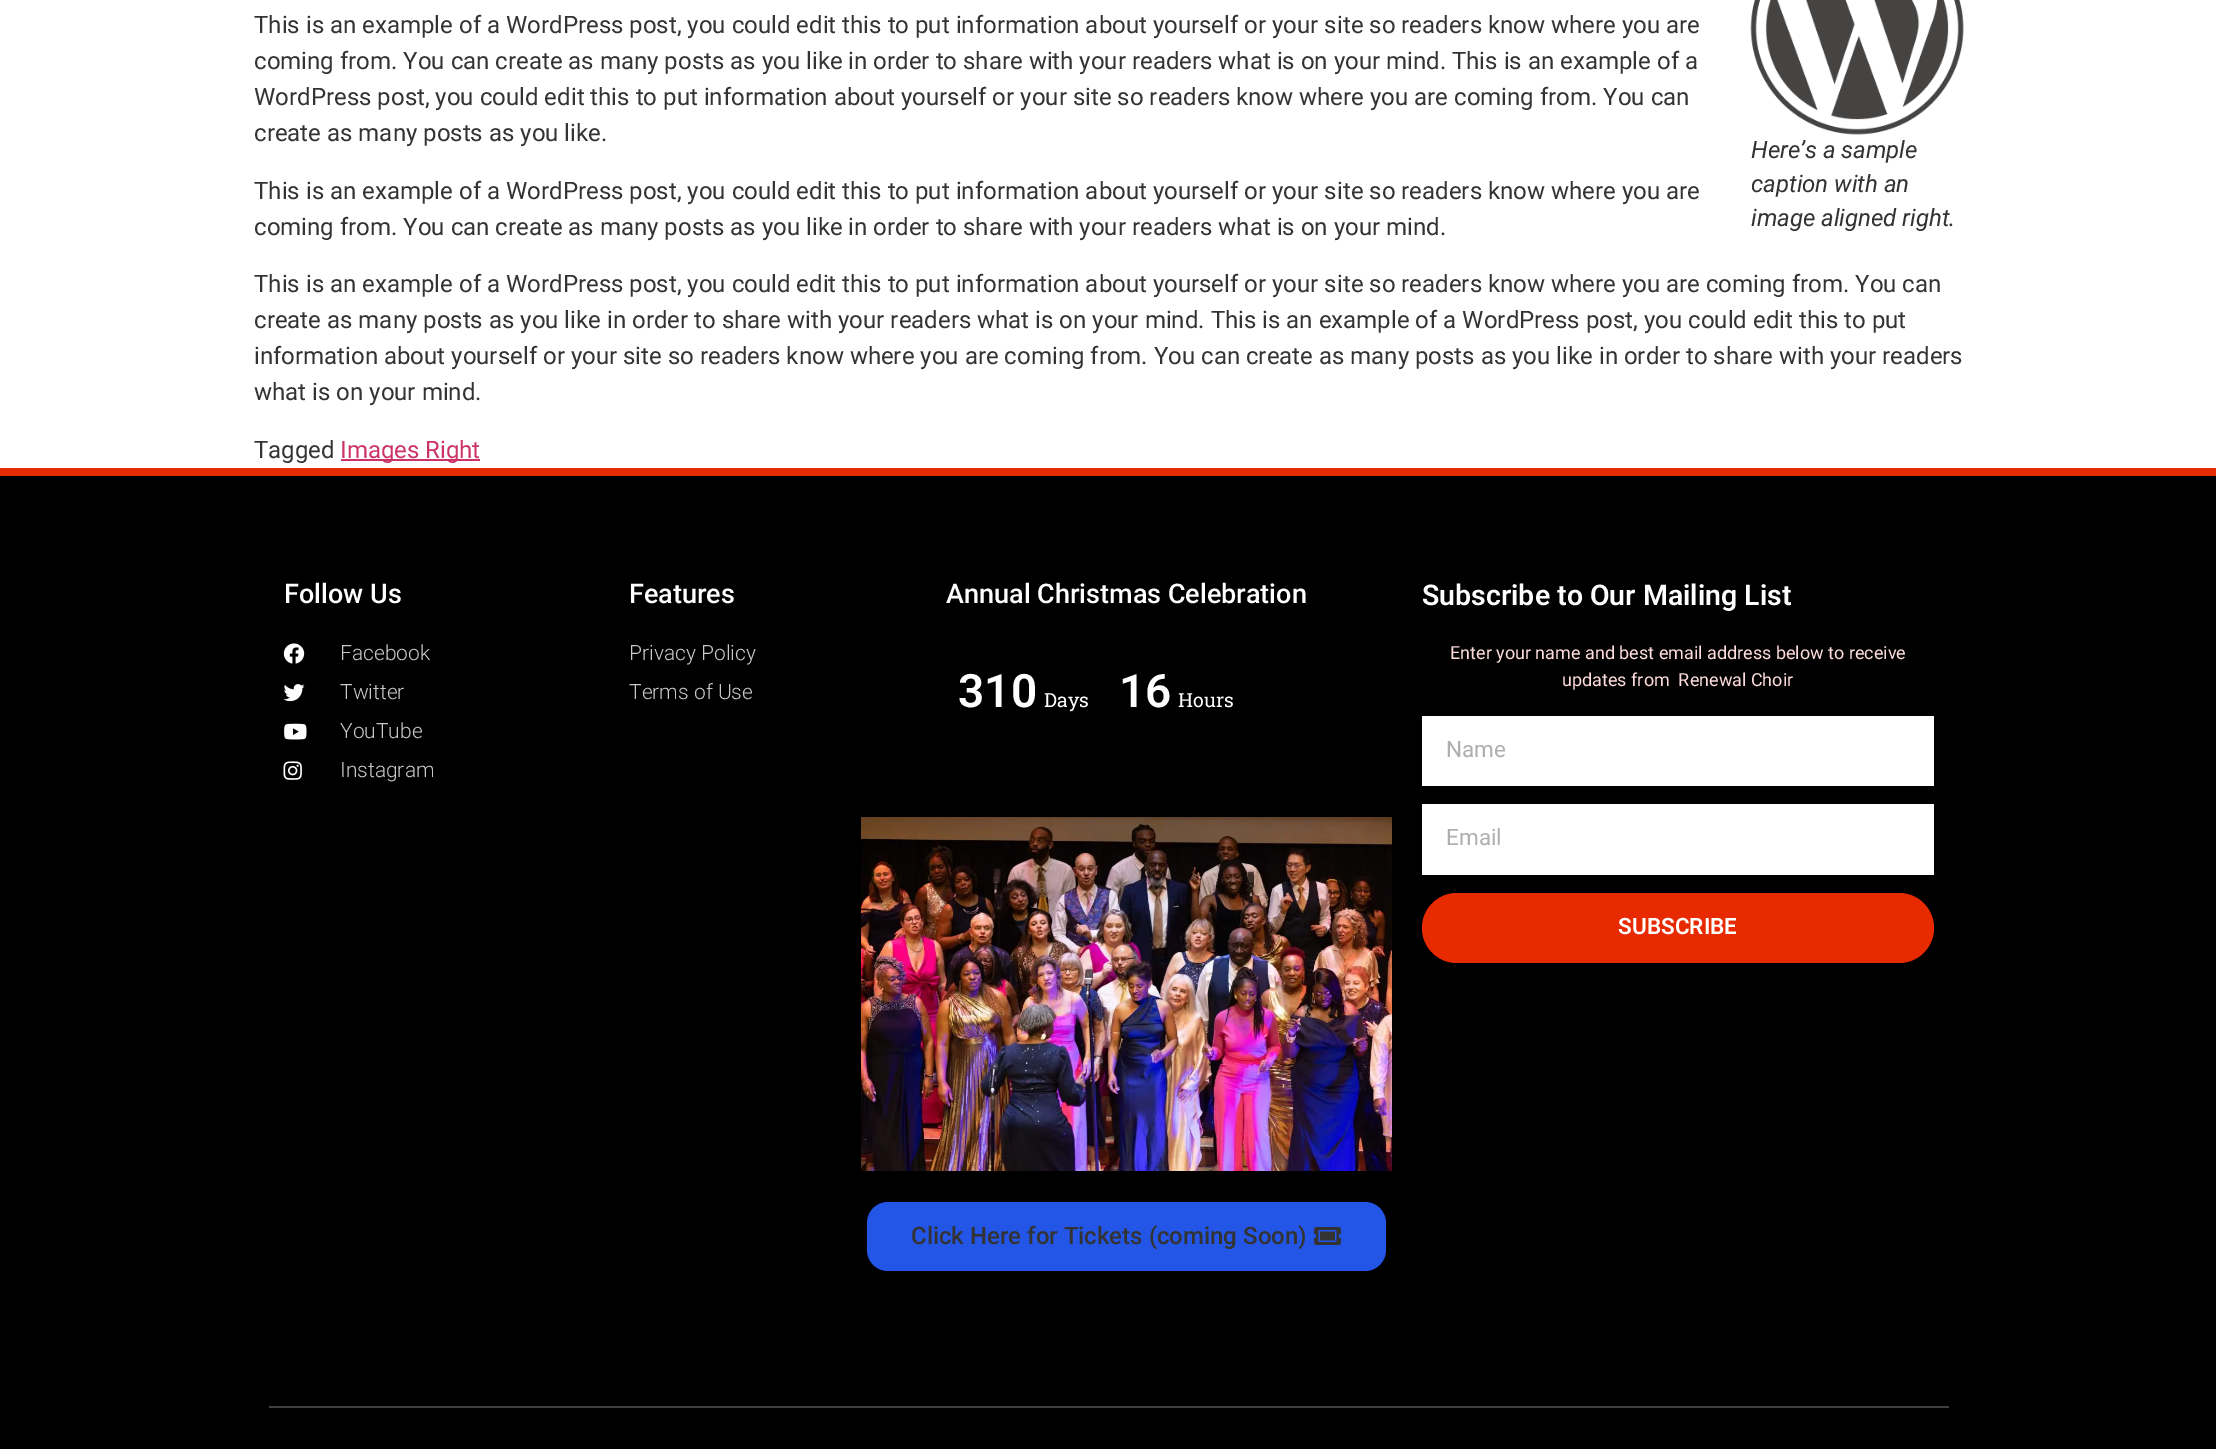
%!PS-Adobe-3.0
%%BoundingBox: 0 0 2216 1449
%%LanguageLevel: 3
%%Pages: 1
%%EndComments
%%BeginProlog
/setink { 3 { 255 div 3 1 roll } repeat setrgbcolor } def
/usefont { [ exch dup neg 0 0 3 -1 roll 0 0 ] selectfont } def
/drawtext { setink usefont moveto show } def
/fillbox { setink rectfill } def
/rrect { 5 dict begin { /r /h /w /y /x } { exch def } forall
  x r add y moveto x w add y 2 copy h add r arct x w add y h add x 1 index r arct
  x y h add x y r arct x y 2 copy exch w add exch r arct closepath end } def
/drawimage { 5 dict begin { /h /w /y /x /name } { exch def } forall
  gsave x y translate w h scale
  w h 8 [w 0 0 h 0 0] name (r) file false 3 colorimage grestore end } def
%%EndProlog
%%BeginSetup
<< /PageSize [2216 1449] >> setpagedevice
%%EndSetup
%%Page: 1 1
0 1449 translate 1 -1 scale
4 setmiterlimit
0 0 2216 1449 255 255 255 fillbox
(This is an example of a WordPress post, you could edit this to put information about yourself or your site so readers know where you are) 254 33 /Roboto-Regular 24 51 51 51 drawtext
(coming from. You can create as many posts as you like in order to share with your readers what is on your mind. This is an example of a) 254 69 /Roboto-Regular 24 51 51 51 drawtext
(WordPress post, you could edit this to put information about yourself or your site so readers know where you are coming from. You can) 254 105 /Roboto-Regular 24 51 51 51 drawtext
(create as many posts as you like.) 254 141 /Roboto-Regular 24 51 51 51 drawtext
(This is an example of a WordPress post, you could edit this to put information about yourself or your site so readers know where you are) 254 199 /Roboto-Regular 24 51 51 51 drawtext
(coming from. You can create as many posts as you like in order to share with your readers what is on your mind.) 254 235 /Roboto-Regular 24 51 51 51 drawtext
(assets/img1.rgb) 1750 0 214 135 drawimage
(Here’s a sample) 1751 158 /Roboto-Italic 24 51 51 51 drawtext
(caption with an) 1751 192 /Roboto-Italic 24 51 51 51 drawtext
(image aligned right.) 1751 226 /Roboto-Italic 24 51 51 51 drawtext
(This is an example of a WordPress post, you could edit this to put information about yourself or your site so readers know where you are coming from. You can) 254 292 /Roboto-Regular 24 51 51 51 drawtext
(create as many posts as you like in order to share with your readers what is on your mind. This is an example of a WordPress post, you could edit this to put) 254 328 /Roboto-Regular 24 51 51 51 drawtext
(information about yourself or your site so readers know where you are coming from. You can create as many posts as you like in order to share with your readers) 254 364 /Roboto-Regular 24 51 51 51 drawtext
(what is on your mind.) 254 400 /Roboto-Regular 24 51 51 51 drawtext
(Tagged) 254 458 /Roboto-Regular 24 51 51 51 drawtext
341 459 139 2 204 51 102 fillbox
(Images Right) 340 458 /Roboto-Regular 24 204 51 102 drawtext
0 476 2216 973 0 0 0 fillbox
0 468 2216 8 232 42 0 fillbox
(Follow Us) 284 603 /Roboto-Medium 27 255 255 255 drawtext
(assets/img2.rgb) 283 643 22 21 drawimage
(Facebook) 340 660 /Roboto-Light 21 201 201 201 drawtext
(assets/img3.rgb) 283 684 22 18 drawimage
(Twitter) 340 699 /Roboto-Light 21 201 201 201 drawtext
(assets/img4.rgb) 284 723 23 17 drawimage
(YouTube) 340 738 /Roboto-Light 21 201 201 201 drawtext
(assets/img5.rgb) 283 761 19 19 drawimage
(Instagram) 340 777 /Roboto-Light 21 201 201 201 drawtext
(Features) 629 603 /Roboto-Medium 27 255 255 255 drawtext
(Privacy Policy) 629 660 /Roboto-Light 21 201 201 201 drawtext
(Terms of Use) 629 699 /Roboto-Light 21 201 201 201 drawtext
(Annual Christmas Celebration) 946 603 /Roboto-Medium 27 255 255 255 drawtext
(310) 958 707 /Roboto-SemiBold 46 255 255 255 drawtext
(Days) 1044 707 /RobotoSlab-Regular 19.5 255 255 255 drawtext
(16) 1119 707 /Roboto-SemiBold 46 255 255 255 drawtext
(Hours) 1178 707 /RobotoSlab-Regular 19.5 255 255 255 drawtext
(assets/img6.rgb) 861 817 531 354 drawimage
35 85 230 setink
867 1202 519 69 21 rrect fill
(Click Here for Tickets \(coming Soon\)) 911 1244 /Roboto-Medium 24 51 51 51 drawtext
(assets/img7.rgb) 1314 1227 27 18 drawimage
(Subscribe to Our Mailing List) 1422 605 /Roboto-SemiBold 28.5 255 255 255 drawtext
(Enter your name and best email address below to receive) 1450 659 /Roboto-Regular 18 255 221 221 drawtext
(updates from  Renewal Choir) 1562 686 /Roboto-Regular 18 255 221 221 drawtext
1422 716 512 70 255 255 255 fillbox
(Name) 1446 757 /Roboto-Regular 22.5 175 175 175 drawtext
1422 804 512 71 255 255 255 fillbox
(Email) 1446 845 /Roboto-Regular 22.5 175 175 175 drawtext
232 42 0 setink
1422 893 512 70 35 rrect fill
(SUBSCRIBE) 1618 934 /Roboto-SemiBold 22.5 255 255 255 drawtext
269 1406 1680 2 64 64 64 fillbox
showpage
%%EOF
